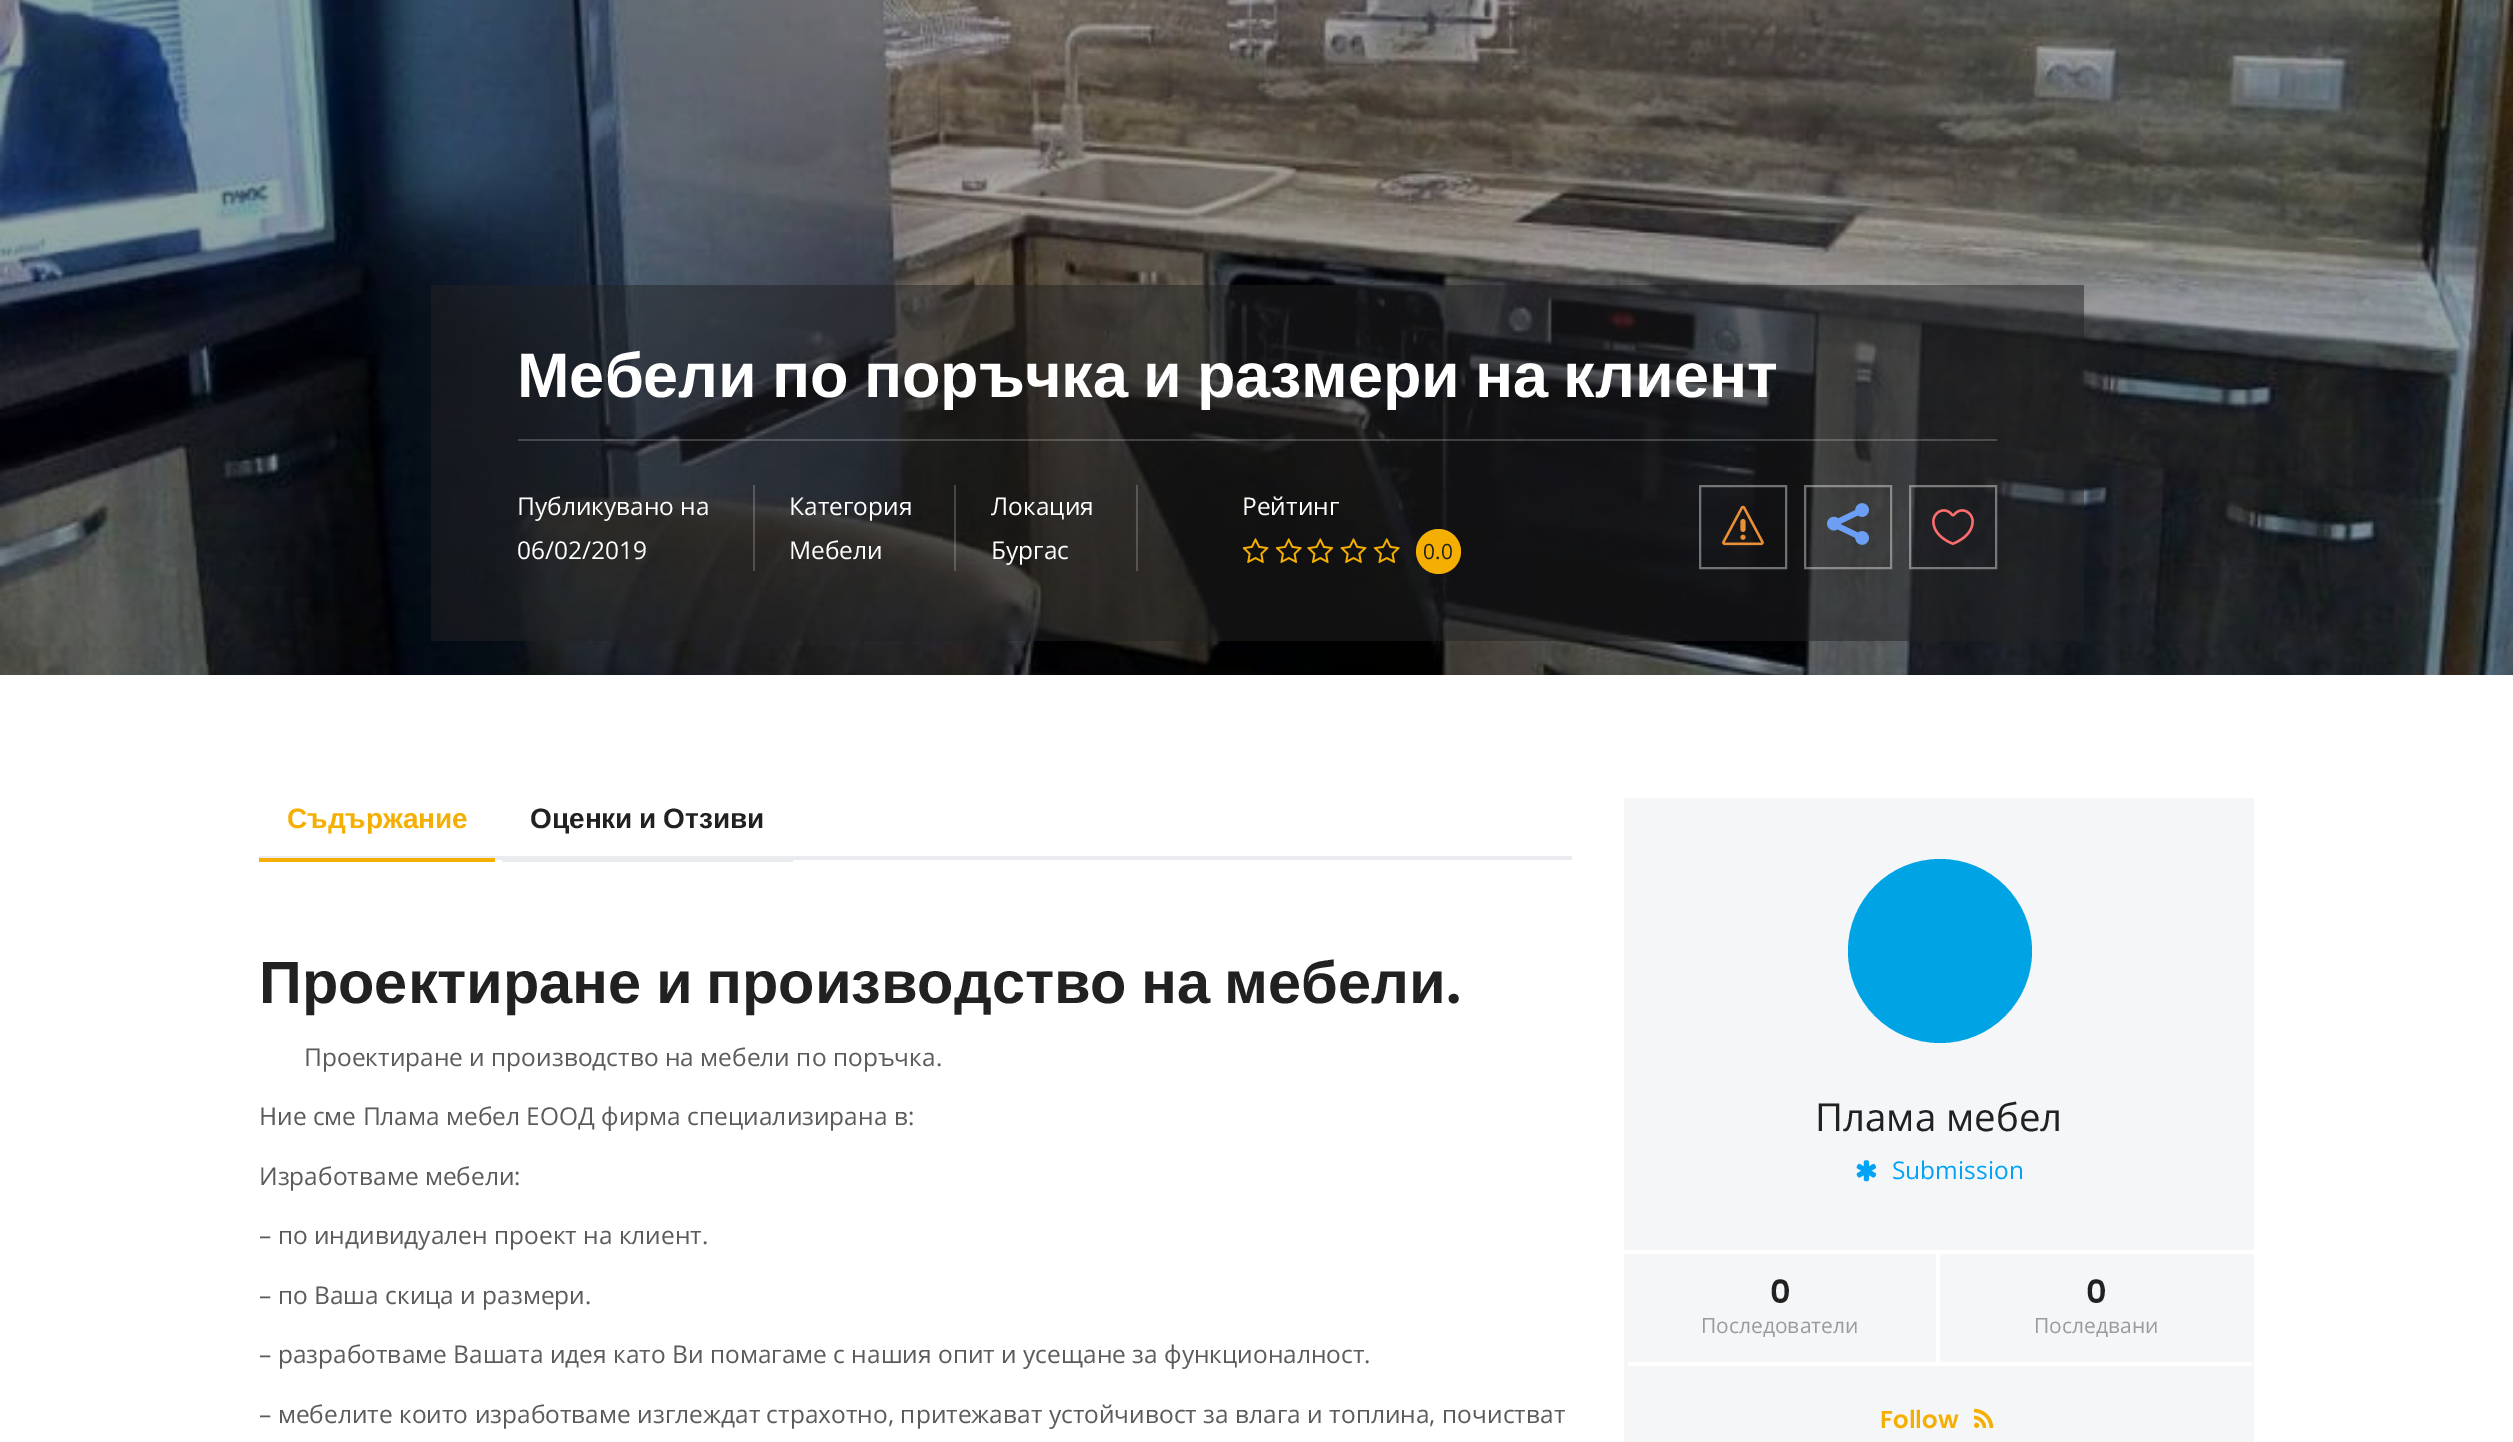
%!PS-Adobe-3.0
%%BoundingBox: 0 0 2513 1442
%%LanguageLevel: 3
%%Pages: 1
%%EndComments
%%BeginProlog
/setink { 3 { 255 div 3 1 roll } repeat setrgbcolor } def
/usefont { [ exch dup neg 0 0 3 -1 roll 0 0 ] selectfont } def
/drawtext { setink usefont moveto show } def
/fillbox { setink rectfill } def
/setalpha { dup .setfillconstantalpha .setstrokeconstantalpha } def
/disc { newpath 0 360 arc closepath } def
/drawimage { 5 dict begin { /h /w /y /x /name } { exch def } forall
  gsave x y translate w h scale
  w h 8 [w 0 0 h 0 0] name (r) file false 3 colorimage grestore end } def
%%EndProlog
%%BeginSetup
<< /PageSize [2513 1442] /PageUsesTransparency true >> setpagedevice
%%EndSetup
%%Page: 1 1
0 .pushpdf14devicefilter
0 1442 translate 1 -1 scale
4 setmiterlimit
0 0 2513 1442 255 255 255 fillbox
(assets/img1.rgb) 0 0 2513 675 drawimage
0.5 setalpha
431 285 1653 356 33 33 34 fillbox
0.2 setalpha
518 439 1479 2 255 255 255 fillbox
/LiberationSans-Bold 63 usefont
1 setalpha
517 397 moveto -2.5 0 32 (Мебели по поръчка и размери на клиент) widthshow
(Публикувано на) 517 515 /OpenSans-Regular 24.5 255 255 255 drawtext
0.2 setalpha
753 485 2 86 255 255 255 fillbox
1 setalpha
(06/02/2019) 517 559 /OpenSans-Regular 24.5 255 255 255 drawtext
(Категория) 789 515 /OpenSans-Regular 24.5 255 255 255 drawtext
0.2 setalpha
954 485 2 86 255 255 255 fillbox
1 setalpha
(Мебели) 789 559 /OpenSans-Regular 24.5 255 255 255 drawtext
(Локация) 991 515 /OpenSans-Regular 24.5 255 255 255 drawtext
0.2 setalpha
1136 485 2 86 255 255 255 fillbox
1 setalpha
(Бургас) 991 559 /OpenSans-Regular 24.5 255 255 255 drawtext
(Рейтинг) 1242 515 /OpenSans-Regular 24.5 255 255 255 drawtext
(assets/img2.rgb) 1243 538 26 25 drawimage
(assets/img3.rgb) 1275 538 27 25 drawimage
(assets/img4.rgb) 1307 538 27 25 drawimage
(assets/img5.rgb) 1340 538 27 25 drawimage
(assets/img6.rgb) 1373 538 27 25 drawimage
245 175 2 setink
1438.5 551.5 22.5 disc fill
(0.0) 1423 559 /OpenSans-Regular 21 33 33 34 drawtext
0.4 setalpha
255 255 255 setink
2 setlinewidth
1700 486 86 82 rectstroke
1 setalpha
(assets/img7.rgb) 1722 505 42 41 drawimage
0.4 setalpha
1805 486 86 82 rectstroke
1 setalpha
(assets/img8.rgb) 1827 503 42 42 drawimage
0.4 setalpha
1910 486 86 82 rectstroke
1 setalpha
(assets/img9.rgb) 1932 509 42 37 drawimage
259 856 1313 4 233 235 238 fillbox
259 858 236 4 245 175 2 fillbox
(Съдържание) 287 828 /LiberationSans-Bold 28 245 175 2 drawtext
502 860 291 2 233 235 238 fillbox
33 33 34 setink
530 828 moveto -1 0 32 (Оценки и Отзиви) widthshow
/LiberationSans-Bold 59.5 usefont
259 1003 moveto -2.5 0 32 (Проектиране и производство на мебели) widthshow
(.) 1446 1003 /Poppins-SemiBold 59.5 33 33 34 drawtext
(Проектиране и производство на мебели по поръчка.) 304 1066 /OpenSans-Regular 24.5 90 91 92 drawtext
(Ние сме Плама мебел ЕООД фирма специализирана в:) 259 1125 /OpenSans-Regular 24.5 90 91 92 drawtext
(Изработваме мебели:) 259 1185 /OpenSans-Regular 24.5 90 91 92 drawtext
(– по индивидуален проект на клиент.) 259 1244 /OpenSans-Regular 24.5 90 91 92 drawtext
(– по Ваша скица и размери.) 259 1304 /OpenSans-Regular 24.5 90 91 92 drawtext
(– разработваме Вашата идея като Ви помагаме с нашия опит и усещане за функционалност.) 259 1363 /OpenSans-Regular 24.5 90 91 92 drawtext
(– мебелите които изработваме изглеждат страхотно, притежават устойчивост за влага и топлина, почистват) 259 1423 /OpenSans-Regular 24.5 90 91 92 drawtext
1624 798 630 644 244 246 248 fillbox
0 164 228 setink
1940 951 92 disc fill
(Плама мебел) 1815 1131 /OpenSans-Regular 38.5 33 33 34 drawtext
(assets/img10.rgb) 1856 1160 21 22 drawimage
(Submission) 1892 1179 /OpenSans-Regular 24.5 2 163 245 drawtext
1624 1250 630 4 255 255 255 fillbox
1936 1253 4 109 255 255 255 fillbox
(0) 1770 1303 /Poppins-SemiBold 32 33 33 34 drawtext
(Последователи) 1701 1333 /OpenSans-Regular 21 154 155 156 drawtext
(0) 2086 1303 /Poppins-SemiBold 32 33 33 34 drawtext
(Последвани) 2034 1333 /OpenSans-Regular 21 154 155 156 drawtext
1628 1362 624 4 255 255 255 fillbox
(Follow) 1880 1428 /Poppins-SemiBold 24.5 245 175 2 drawtext
(assets/img11.rgb) 1974 1408 20 20 drawimage
.poppdf14devicefilter showpage
%%EOF
